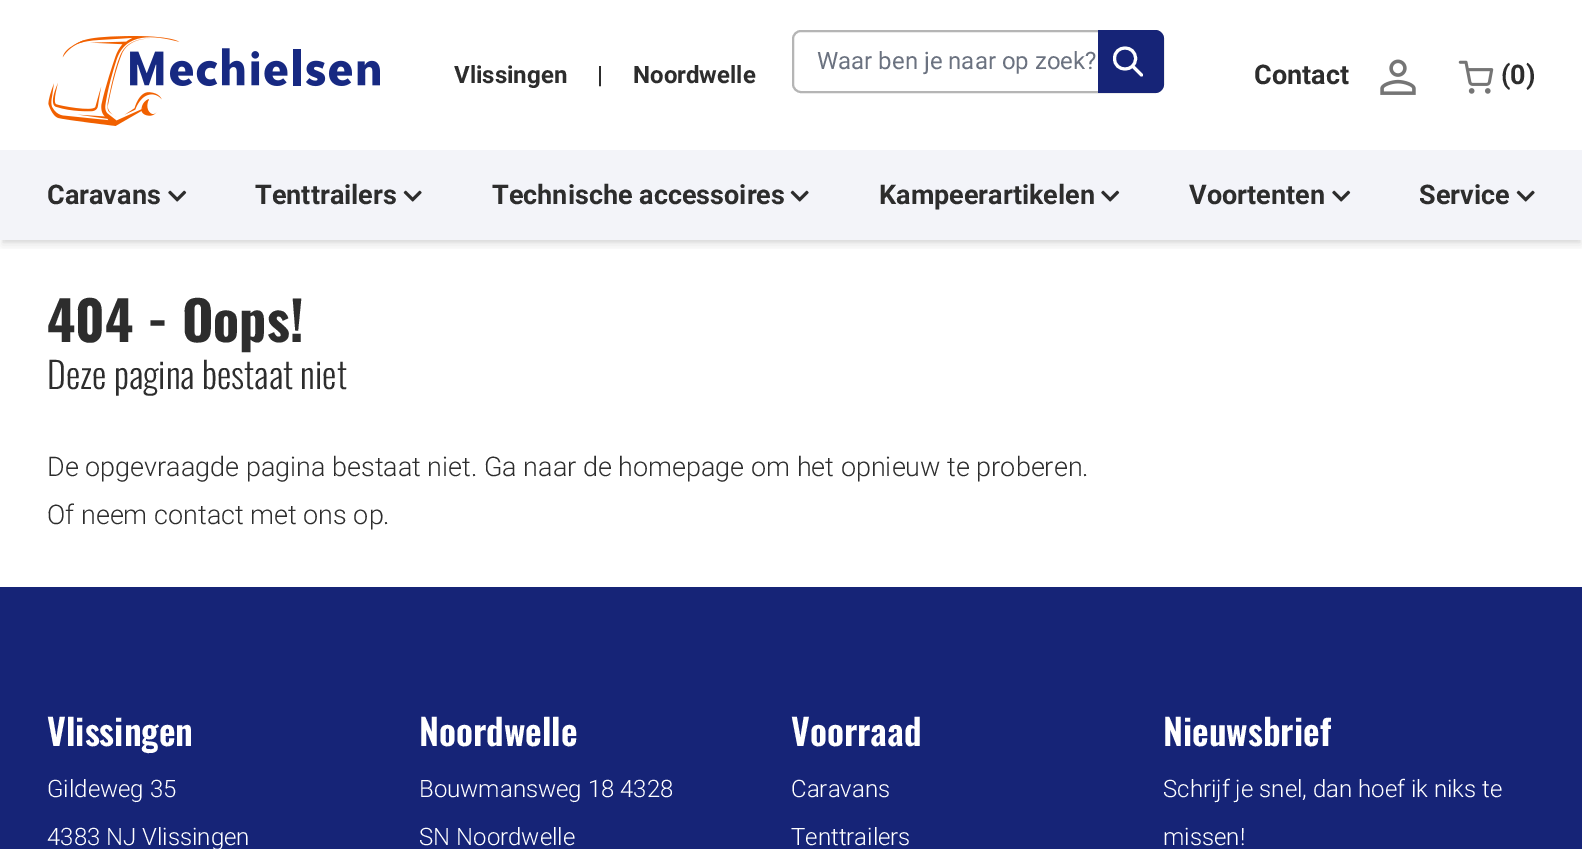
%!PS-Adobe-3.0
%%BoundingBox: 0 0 1582 849
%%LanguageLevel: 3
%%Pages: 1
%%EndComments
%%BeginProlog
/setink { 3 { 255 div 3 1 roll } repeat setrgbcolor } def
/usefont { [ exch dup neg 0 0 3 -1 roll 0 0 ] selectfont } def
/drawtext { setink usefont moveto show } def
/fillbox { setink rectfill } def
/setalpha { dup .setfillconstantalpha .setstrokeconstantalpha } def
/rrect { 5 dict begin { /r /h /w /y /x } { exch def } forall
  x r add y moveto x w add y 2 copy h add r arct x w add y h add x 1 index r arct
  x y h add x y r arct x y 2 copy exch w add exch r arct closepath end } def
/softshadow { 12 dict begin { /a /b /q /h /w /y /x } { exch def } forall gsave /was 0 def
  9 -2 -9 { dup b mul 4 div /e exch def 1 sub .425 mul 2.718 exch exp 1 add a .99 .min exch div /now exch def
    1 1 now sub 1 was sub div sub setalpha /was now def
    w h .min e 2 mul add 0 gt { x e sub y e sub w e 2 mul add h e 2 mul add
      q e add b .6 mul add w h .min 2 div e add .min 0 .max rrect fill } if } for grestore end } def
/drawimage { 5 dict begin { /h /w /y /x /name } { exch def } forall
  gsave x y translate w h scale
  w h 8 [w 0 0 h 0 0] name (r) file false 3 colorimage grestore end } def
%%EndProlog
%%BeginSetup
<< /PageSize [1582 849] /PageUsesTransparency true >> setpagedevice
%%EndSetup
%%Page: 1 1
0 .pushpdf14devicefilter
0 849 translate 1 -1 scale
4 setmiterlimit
0 0 1582 849 255 255 255 fillbox
gsave
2 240 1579 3 rectclip
0 0 0 setink
2 5 1579 237 0 3 0.06 softshadow
grestore
gsave
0 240 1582 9 rectclip
0 0 0 setink
2 8 1579 237 0 4.5 0.1 softshadow
grestore
(assets/img1.rgb) 48 36 332 90 drawimage
(Vlissingen) 454 83 /Roboto-Bold 24 45 45 45 drawtext
(|) 597 83 /Roboto-Bold 24 45 45 45 drawtext
(Noordwelle) 633 83 /Roboto-Bold 24 45 45 45 drawtext
181 181 181 setink
2 setlinewidth
793 31 370 61 8 rrect stroke
(Waar ben je naar op zoek?) 817 69 /Roboto-Regular 24 107 114 128 drawtext
22 36 119 setink
1098 30 moveto 1155 30 lineto 1160 30 1164 34 1164 39 curveto 1164 84 lineto 1164 89 1160 93 1155 93 curveto 1098 93 lineto closepath fill
255 255 255 setink
3 setlinewidth
1 setlinecap
1 setlinejoin
1141.5 75 moveto 1132.5 66 lineto 1135.5 58.5 moveto 1135.5 72.5 1114.5 72.5 1114.5 58.5 curveto 1114.5 44.5 1135.5 44.5 1135.5 58.5 curveto closepath stroke
(Contact) 1254 84 /Roboto-Bold 27 45 45 45 drawtext
(assets/img2.rgb) 1380 59 36 36 drawimage
(assets/img3.rgb) 1458 60 36 34 drawimage
(\(0\)) 1501 84 /Roboto-Bold 27 45 45 45 drawtext
0 150 1582 90 243 244 249 fillbox
(Caravans) 47 204 /Roboto-Bold 27 45 45 45 drawtext
(assets/img4.rgb) 168 190 19 12 drawimage
(Tenttrailers) 255 204 /Roboto-Bold 27 45 45 45 drawtext
(assets/img5.rgb) 403 190 19 12 drawimage
(Technische accessoires) 492 204 /Roboto-Bold 27 45 45 45 drawtext
(assets/img5.rgb) 790 190 19 12 drawimage
(Kampeerartikelen) 879 204 /Roboto-Bold 27 45 45 45 drawtext
(assets/img4.rgb) 1101 190 19 12 drawimage
(Voortenten) 1189 204 /Roboto-Bold 27 45 45 45 drawtext
(assets/img4.rgb) 1332 190 19 12 drawimage
(Service) 1419 204 /Roboto-Bold 27 45 45 45 drawtext
(assets/img5.rgb) 1516 190 19 12 drawimage
0 587 1582 262 22 36 119 fillbox
(Vlissingen) 47 746 /Oswald-SemiBold 36 255 255 255 drawtext
(Gildeweg 35) 47 797 /Roboto-Light 24 255 255 255 drawtext
(4383 NJ Vlissingen) 47 845 /Roboto-Light 24 255 255 255 drawtext
(Noordwelle) 419 746 /Oswald-SemiBold 36 255 255 255 drawtext
(Bouwmansweg 18 4328) 419 797 /Roboto-Light 24 255 255 255 drawtext
(SN Noordwelle) 419 845 /Roboto-Light 24 255 255 255 drawtext
(Voorraad) 791 746 /Oswald-SemiBold 36 255 255 255 drawtext
(Caravans) 791 797 /Roboto-Light 24 255 255 255 drawtext
(Tenttrailers) 791 845 /Roboto-Light 24 255 255 255 drawtext
(Nieuwsbrief) 1163 746 /Oswald-SemiBold 36 255 255 255 drawtext
(Schrijf je snel, dan hoef ik niks te) 1163 797 /Roboto-Light 24 255 255 255 drawtext
(missen!) 1163 845 /Roboto-Light 24 255 255 255 drawtext
(404 - Oops!) 47 342 /Oswald-Bold 54 45 45 45 drawtext
(Deze pagina bestaat niet) 47 389 /Oswald-Light 36 45 45 45 drawtext
(De opgevraagde pagina bestaat niet. Ga naar de homepage om het opnieuw te proberen.) 47 476 /Roboto-Light 27 45 45 45 drawtext
(Of neem contact met ons op.) 47 524 /Roboto-Light 27 45 45 45 drawtext
.poppdf14devicefilter showpage
%%EOF
